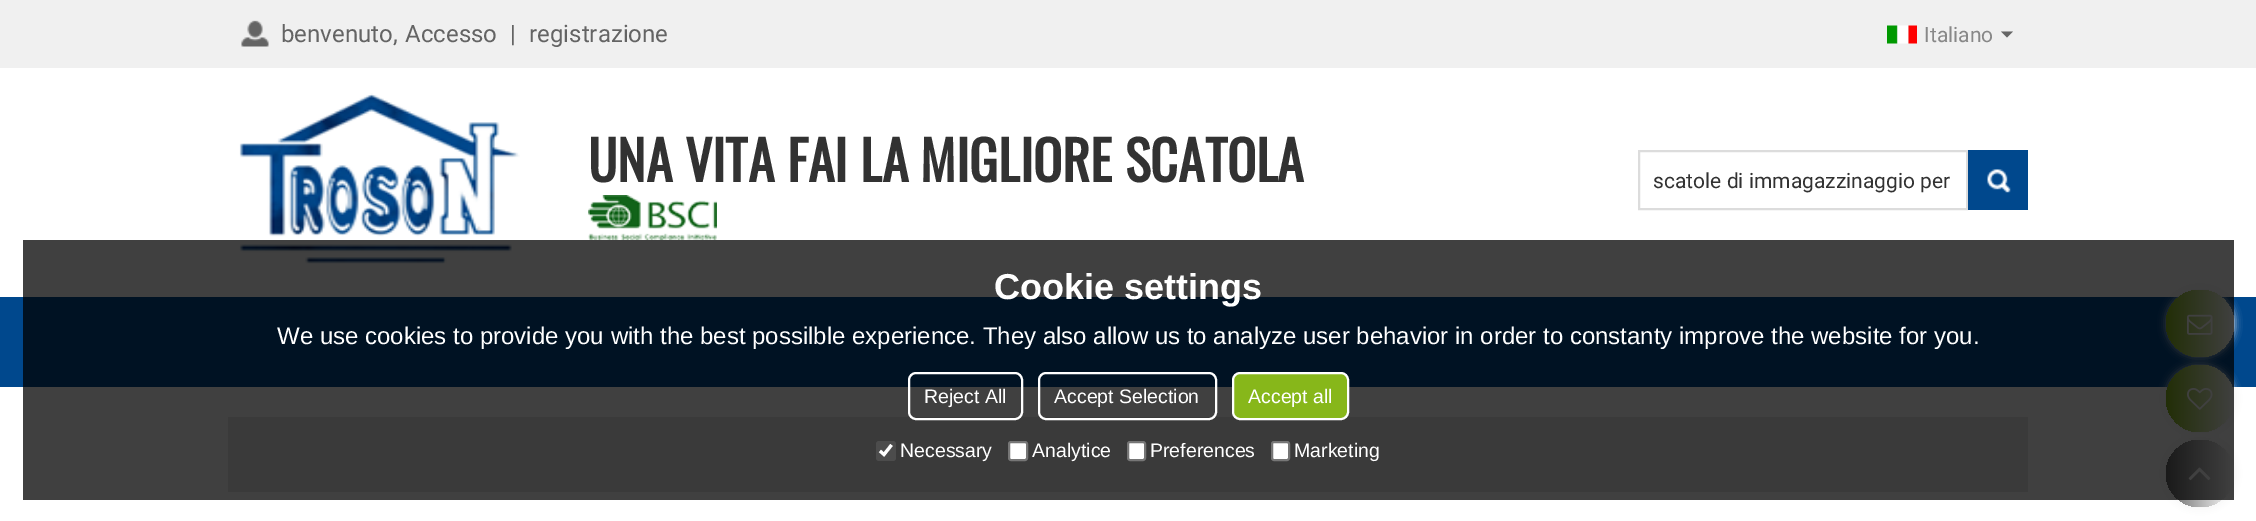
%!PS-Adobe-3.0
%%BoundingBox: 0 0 2256 521
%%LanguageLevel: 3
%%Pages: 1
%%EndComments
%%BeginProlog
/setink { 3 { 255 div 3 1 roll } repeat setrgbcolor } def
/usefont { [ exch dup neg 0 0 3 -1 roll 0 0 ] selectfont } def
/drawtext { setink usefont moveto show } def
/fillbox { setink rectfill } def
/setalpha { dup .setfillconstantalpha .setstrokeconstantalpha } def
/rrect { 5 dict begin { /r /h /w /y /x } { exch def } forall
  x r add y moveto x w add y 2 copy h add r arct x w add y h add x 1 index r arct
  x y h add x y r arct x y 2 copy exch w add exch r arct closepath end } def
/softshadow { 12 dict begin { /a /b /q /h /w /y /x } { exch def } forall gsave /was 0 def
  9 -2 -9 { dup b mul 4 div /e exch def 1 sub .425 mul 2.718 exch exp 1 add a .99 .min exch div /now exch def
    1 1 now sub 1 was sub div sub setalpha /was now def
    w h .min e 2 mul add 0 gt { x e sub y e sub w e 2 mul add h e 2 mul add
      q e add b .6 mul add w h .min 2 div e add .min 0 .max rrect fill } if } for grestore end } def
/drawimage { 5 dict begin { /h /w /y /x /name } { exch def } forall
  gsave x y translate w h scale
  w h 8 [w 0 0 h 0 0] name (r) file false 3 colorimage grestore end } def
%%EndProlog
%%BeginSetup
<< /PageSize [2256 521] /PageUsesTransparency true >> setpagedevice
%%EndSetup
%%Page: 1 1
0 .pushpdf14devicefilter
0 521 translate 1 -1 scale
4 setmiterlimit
0 0 2256 521 255 255 255 fillbox
0 0 2256 68 240 240 240 fillbox
(assets/img1.rgb) 241 20 28 27 drawimage
(benvenuto,) 281 42 /Roboto-Regular 24 100 100 100 drawtext
(Accesso) 405 42 /Roboto-Regular 24 100 100 100 drawtext
(|) 510 42 /Roboto-Regular 24 100 100 100 drawtext
(registrazione) 529 42 /Roboto-Regular 24 100 100 100 drawtext
(assets/img2.rgb) 1887 25 30 19 drawimage
(Italiano) 1924 42 /Roboto-Regular 21 136 136 136 drawtext
102 102 102 setink
2001 31.5 moveto 2013 31.5 lineto 2007 37.5 lineto closepath fill
(assets/img3.rgb) 239 93 281 171 drawimage
(UNA VITA FAI LA MIGLIORE SCATOLA) 588 182 /Oswald-Bold 54 50 50 50 drawtext
(assets/img4.rgb) 588 195 129 45 drawimage
220 220 220 setink
2 setlinewidth
1639 151 328 58 rectstroke
(scatole di immagazzinaggio per) 1653 188 /Roboto-Regular 21 50 50 50 drawtext
1968 150 60 60 0 72 141 fillbox
(assets/img5.rgb) 1987 169 24 24 drawimage
0 297 2256 90 0 72 141 fillbox
228 417 1800 75 233 233 233 fillbox
238 238 238 setink
2166 290 68 67 33.5 4 1 softshadow
gsave 2166 290 68 67 33.5 rrect clip newpath
<< /ShadingType 2 /ColorSpace /DeviceRGB /Coords [2166 323 2234 323] /Extend [true true] /Function << /FunctionType 2 /Domain [0 1] /C0 [0.529 0.718 0.102] /C1 [1 1 1] /N 1 >> >> shfill grestore
(assets/img6.rgb) 2187 314 26 21 drawimage
2166 365 68 67 33.5 4 1 softshadow
gsave 2166 365 68 67 33.5 rrect clip newpath
<< /ShadingType 2 /ColorSpace /DeviceRGB /Coords [2166 398 2234 398] /Extend [true true] /Function << /FunctionType 2 /Domain [0 1] /C0 [0.529 0.718 0.102] /C1 [1 1 1] /N 1 >> >> shfill grestore
(assets/img7.rgb) 2187 388 26 22 drawimage
2166 440 68 67 33.5 4 1 softshadow
gsave 2166 440 68 67 33.5 rrect clip newpath
<< /ShadingType 2 /ColorSpace /DeviceRGB /Coords [2166 473 2234 473] /Extend [true true] /Function << /FunctionType 2 /Domain [0 1] /C0 [0.4 0.4 0.4] /C1 [1 1 1] /N 1 >> >> shfill grestore
(assets/img8.rgb) 2188 467 23 14 drawimage
0.75 setalpha
23 240 2211 260 0 0 0 fillbox
1 setalpha
(Cookie settings) 994 299 /LiberationSans-Bold 36 255 255 255 drawtext
(We use cookies to provide you with the best possilble experience. They also allow us to analyze user behavior in order to constanty improve the website for you.) 277 344 /LiberationSans-Regular 24 255 255 255 drawtext
909 373 113 46 7 rrect stroke
(Reject All) 924 403 /LiberationSans-Regular 19.5 255 255 255 drawtext
1039 373 177 46 7 rrect stroke
(Accept Selection) 1054 403 /LiberationSans-Regular 19.5 255 255 255 drawtext
135 183 26 setink
1233 373 115 46 7 rrect gsave fill grestore
255 255 255 setink
stroke
(Accept all) 1248 403 /LiberationSans-Regular 19.5 255 255 255 drawtext
0.3 setalpha
118 118 118 setink
876 441 20 20 3 rrect fill
1 setalpha
255 255 255 setink
3.1 setlinewidth
880 451 moveto 884 454.5 lineto 891.5 445 lineto stroke
(Necessary) 900 457 /LiberationSans-Regular 19.5 255 255 255 drawtext
1009 442 18 18 2 rrect gsave fill grestore
118 118 118 setink
2 setlinewidth
stroke
(Analytice) 1032 457 /LiberationSans-Regular 19.5 255 255 255 drawtext
1128 442 17 18 2 rrect gsave fill grestore
118 118 118 setink
stroke
(Preferences) 1150 457 /LiberationSans-Regular 19.5 255 255 255 drawtext
1272 442 17 18 2 rrect gsave fill grestore
118 118 118 setink
stroke
(Marketing) 1294 457 /LiberationSans-Regular 19.5 255 255 255 drawtext
.poppdf14devicefilter showpage
%%EOF
